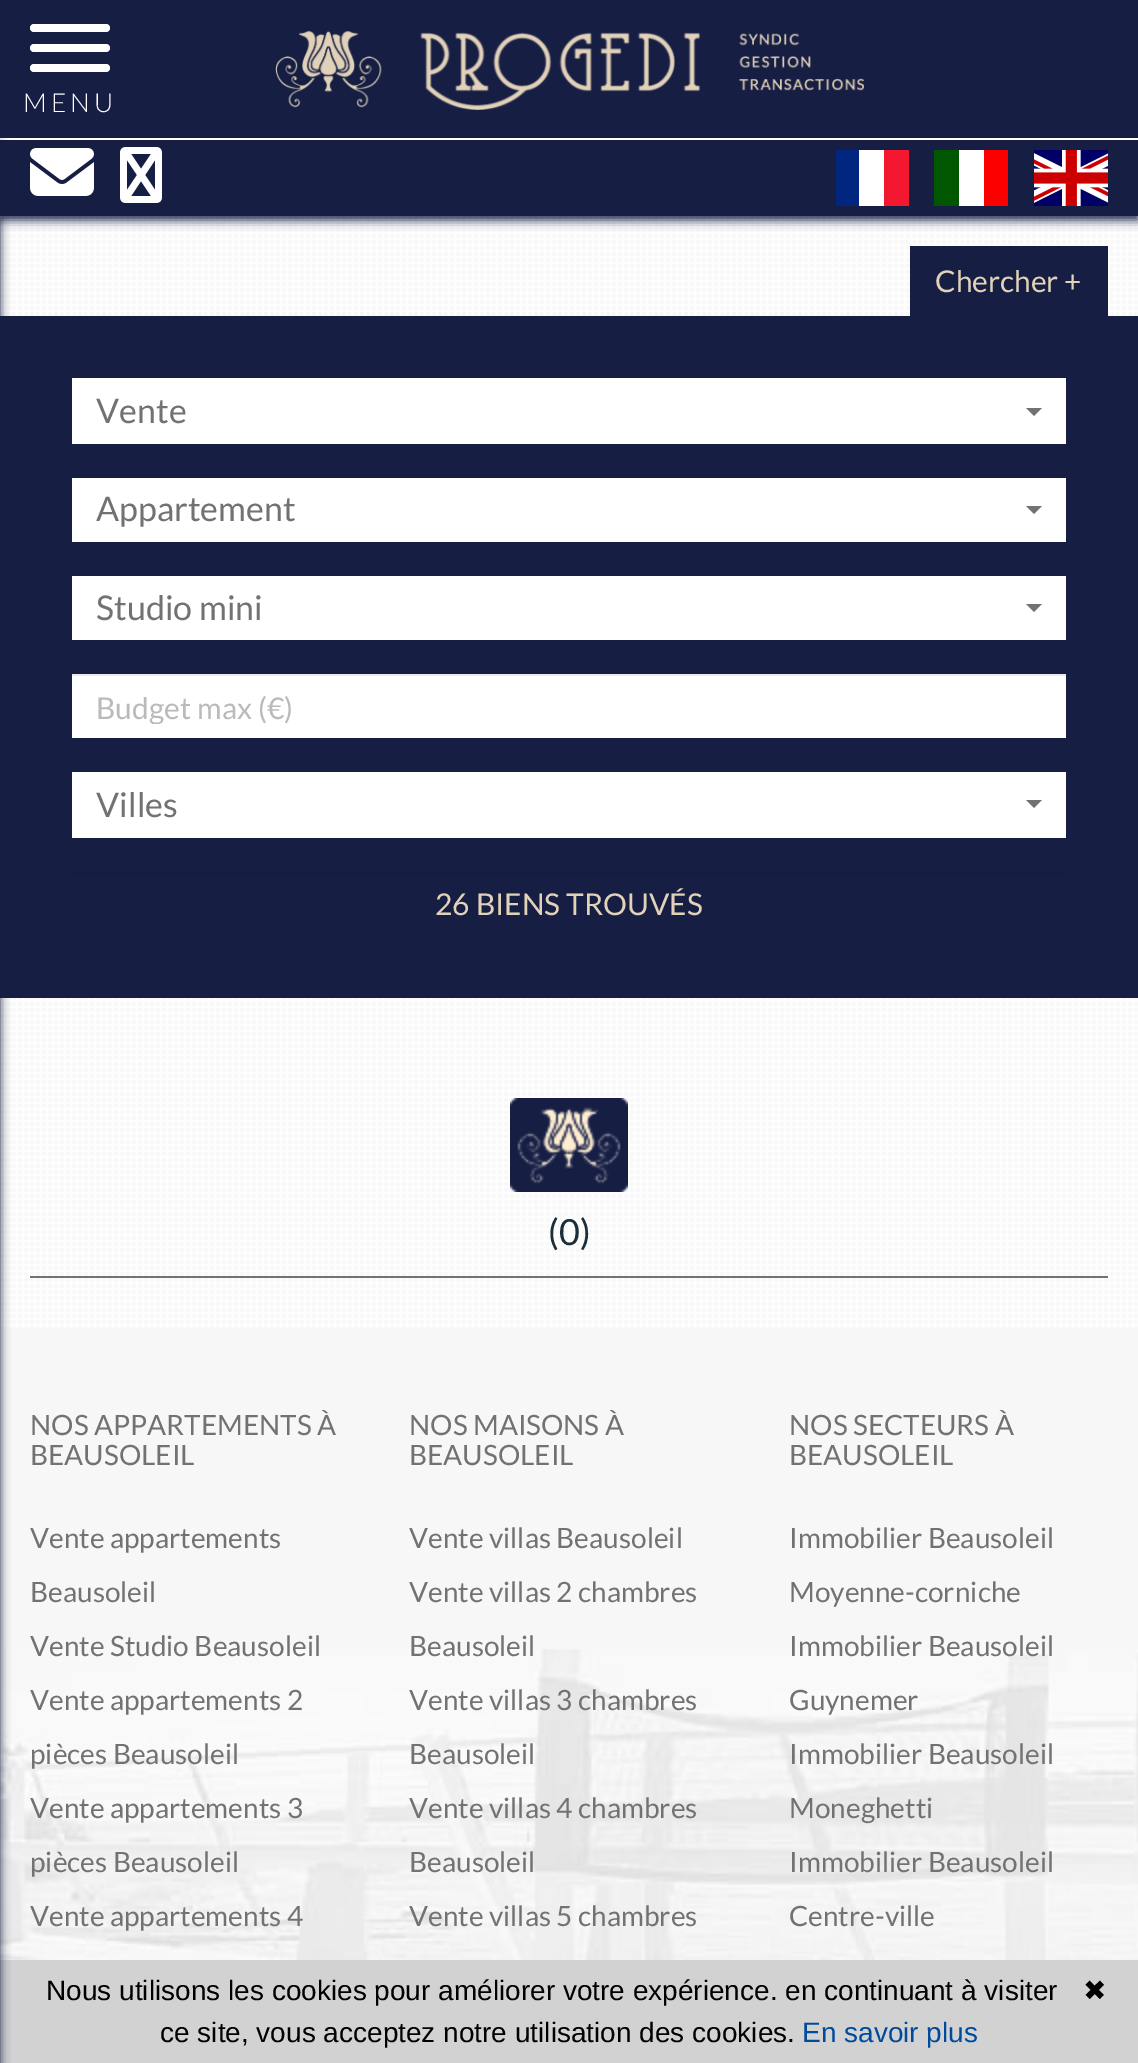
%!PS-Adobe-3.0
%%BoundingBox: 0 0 1138 2063
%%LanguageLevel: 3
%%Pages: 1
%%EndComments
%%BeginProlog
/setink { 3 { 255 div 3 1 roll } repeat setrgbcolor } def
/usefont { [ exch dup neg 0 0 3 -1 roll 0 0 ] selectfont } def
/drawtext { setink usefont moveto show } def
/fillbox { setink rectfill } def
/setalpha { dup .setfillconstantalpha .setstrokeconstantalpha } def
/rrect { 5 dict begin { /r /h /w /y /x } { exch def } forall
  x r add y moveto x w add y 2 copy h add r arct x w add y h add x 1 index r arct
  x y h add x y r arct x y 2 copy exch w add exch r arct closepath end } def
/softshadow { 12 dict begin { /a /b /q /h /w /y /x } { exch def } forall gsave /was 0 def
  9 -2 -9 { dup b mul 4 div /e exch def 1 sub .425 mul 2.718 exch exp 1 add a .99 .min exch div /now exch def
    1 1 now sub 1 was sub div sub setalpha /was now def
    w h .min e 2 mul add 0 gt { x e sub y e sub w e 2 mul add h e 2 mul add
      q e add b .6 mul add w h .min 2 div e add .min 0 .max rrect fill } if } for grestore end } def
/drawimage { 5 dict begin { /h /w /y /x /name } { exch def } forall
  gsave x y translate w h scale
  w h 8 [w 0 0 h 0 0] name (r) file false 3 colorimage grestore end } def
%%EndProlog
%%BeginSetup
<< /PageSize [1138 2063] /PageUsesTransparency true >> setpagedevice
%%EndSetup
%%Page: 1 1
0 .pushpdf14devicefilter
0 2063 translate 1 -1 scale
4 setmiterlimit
0 0 1138 2063 255 255 255 fillbox
(assets/img1.rgb) 0 216 1138 1112 drawimage
23 30 68 setink
0 4 1138 216 0 5 1 softshadow
0 0 1138 216 23 30 68 fillbox
0 138 1138 2 255 255 255 fillbox
30 24 80 8 4 rrect fill
30 44 80 8 4 rrect fill
30 64 80 8 4 rrect fill
/Lato-Light 26 usefont
23 112 moveto 4 0 (MENU) ashow
(assets/img2.rgb) 275 30 589 80 drawimage
(assets/img3.rgb) 30 148 64 48 drawimage
(assets/img4.rgb) 120 147 42 56 drawimage
859 150 25 56 255 255 255 fillbox
836 150 23 56 0 38 127 fillbox
884 150 25 56 243 24 48 fillbox
959 150 25 56 255 255 255 fillbox
934 150 25 56 0 87 0 fillbox
984 150 24 56 252 0 0 fillbox
(assets/img5.rgb) 1034 150 74 56 drawimage
0 316 1138 682 23 30 68 fillbox
0 1328 1138 321 247 247 247 fillbox
(assets/img7.rgb) 0 1649 1138 311 drawimage
0 1960 1138 103 210 210 210 fillbox
23 30 68 setink
-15 144 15 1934 0 5 1 softshadow
910 246 198 70 23 30 68 fillbox
(Chercher +) 935 292 /Lato-Regular 30 226 211 184 drawtext
72 378 994 66 255 255 255 fillbox
(Vente) 96 423 /Lato-Regular 34 114 114 114 drawtext
1026 408 moveto 1042 408 lineto 1034 416 lineto closepath fill
72 478 994 64 255 255 255 fillbox
(Appartement) 96 521 /Lato-Regular 34 114 114 114 drawtext
1026 506 moveto 1042 506 lineto 1034 514 lineto closepath fill
72 576 994 64 255 255 255 fillbox
(Studio mini) 96 620 /Lato-Regular 34 114 114 114 drawtext
1026 604 moveto 1042 604 lineto 1034 612 lineto closepath fill
72 676 994 62 255 255 255 fillbox
72 674 994 2 236 236 236 fillbox
gsave
96 688 946 36 rectclip
(Budget max \(€\)) 96 719 /Lato-Regular 30 186 186 186 drawtext
grestore
72 772 994 66 255 255 255 fillbox
(Villes) 96 817 /Lato-Regular 34 114 114 114 drawtext
1026 800 moveto 1042 800 lineto 1034 808 lineto closepath fill
72 872 994 2 21 28 63 fillbox
(26 BIENS TROUVÉS) 435 915 /Lato-Regular 30 226 211 184 drawtext
(assets/img6.rgb) 510 1098 118 94 drawimage
(\(0\)) 548 1245 /Lato-Regular 36 27 47 58 drawtext
30 1276 1078 2 114 114 114 fillbox
(NOS APPARTEMENTS À) 30 1435 /Lato-Regular 28 114 114 114 drawtext
(BEAUSOLEIL) 30 1465 /Lato-Regular 28 114 114 114 drawtext
(Vente appartements) 30 1548 /Lato-Regular 28 114 114 114 drawtext
(Beausoleil) 30 1602 /Lato-Regular 28 114 114 114 drawtext
(Vente Studio Beausoleil) 30 1656 /Lato-Regular 28 114 114 114 drawtext
(Vente appartements 2) 30 1710 /Lato-Regular 28 114 114 114 drawtext
(pièces Beausoleil) 30 1764 /Lato-Regular 28 114 114 114 drawtext
(Vente appartements 3) 30 1818 /Lato-Regular 28 114 114 114 drawtext
(pièces Beausoleil) 30 1872 /Lato-Regular 28 114 114 114 drawtext
(Vente appartements 4) 30 1926 /Lato-Regular 28 114 114 114 drawtext
(NOS MAISONS À) 409 1435 /Lato-Regular 28 114 114 114 drawtext
(BEAUSOLEIL) 409 1465 /Lato-Regular 28 114 114 114 drawtext
(Vente villas Beausoleil) 409 1548 /Lato-Regular 28 114 114 114 drawtext
(Vente villas 2 chambres) 409 1602 /Lato-Regular 28 114 114 114 drawtext
(Beausoleil) 409 1656 /Lato-Regular 28 114 114 114 drawtext
(Vente villas 3 chambres) 409 1710 /Lato-Regular 28 114 114 114 drawtext
(Beausoleil) 409 1764 /Lato-Regular 28 114 114 114 drawtext
(Vente villas 4 chambres) 409 1818 /Lato-Regular 28 114 114 114 drawtext
(Beausoleil) 409 1872 /Lato-Regular 28 114 114 114 drawtext
(Vente villas 5 chambres) 409 1926 /Lato-Regular 28 114 114 114 drawtext
(NOS SECTEURS À) 789 1435 /Lato-Regular 28 114 114 114 drawtext
(BEAUSOLEIL) 789 1465 /Lato-Regular 28 114 114 114 drawtext
(Immobilier Beausoleil) 789 1548 /Lato-Regular 28 114 114 114 drawtext
(Moyenne-corniche) 789 1602 /Lato-Regular 28 114 114 114 drawtext
(Immobilier Beausoleil) 789 1656 /Lato-Regular 28 114 114 114 drawtext
(Guynemer) 789 1710 /Lato-Regular 28 114 114 114 drawtext
(Immobilier Beausoleil) 789 1764 /Lato-Regular 28 114 114 114 drawtext
(Moneghetti) 789 1818 /Lato-Regular 28 114 114 114 drawtext
(Immobilier Beausoleil) 789 1872 /Lato-Regular 28 114 114 114 drawtext
(Centre-ville) 789 1926 /Lato-Regular 28 114 114 114 drawtext
(Nous utilisons les cookies pour améliorer votre expérience. en continuant à visiter) 46 2000 /LiberationSans-Regular 28 0 0 0 drawtext
(✖) 1083 2000 /DejaVuSans-Regular 28 0 0 0 drawtext
(ce site, vous acceptez notre utilisation des cookies.) 160 2042 /LiberationSans-Regular 28 0 0 0 drawtext
(En savoir plus) 802 2042 /LiberationSans-Regular 28 0 74 156 drawtext
.poppdf14devicefilter showpage
%%EOF
